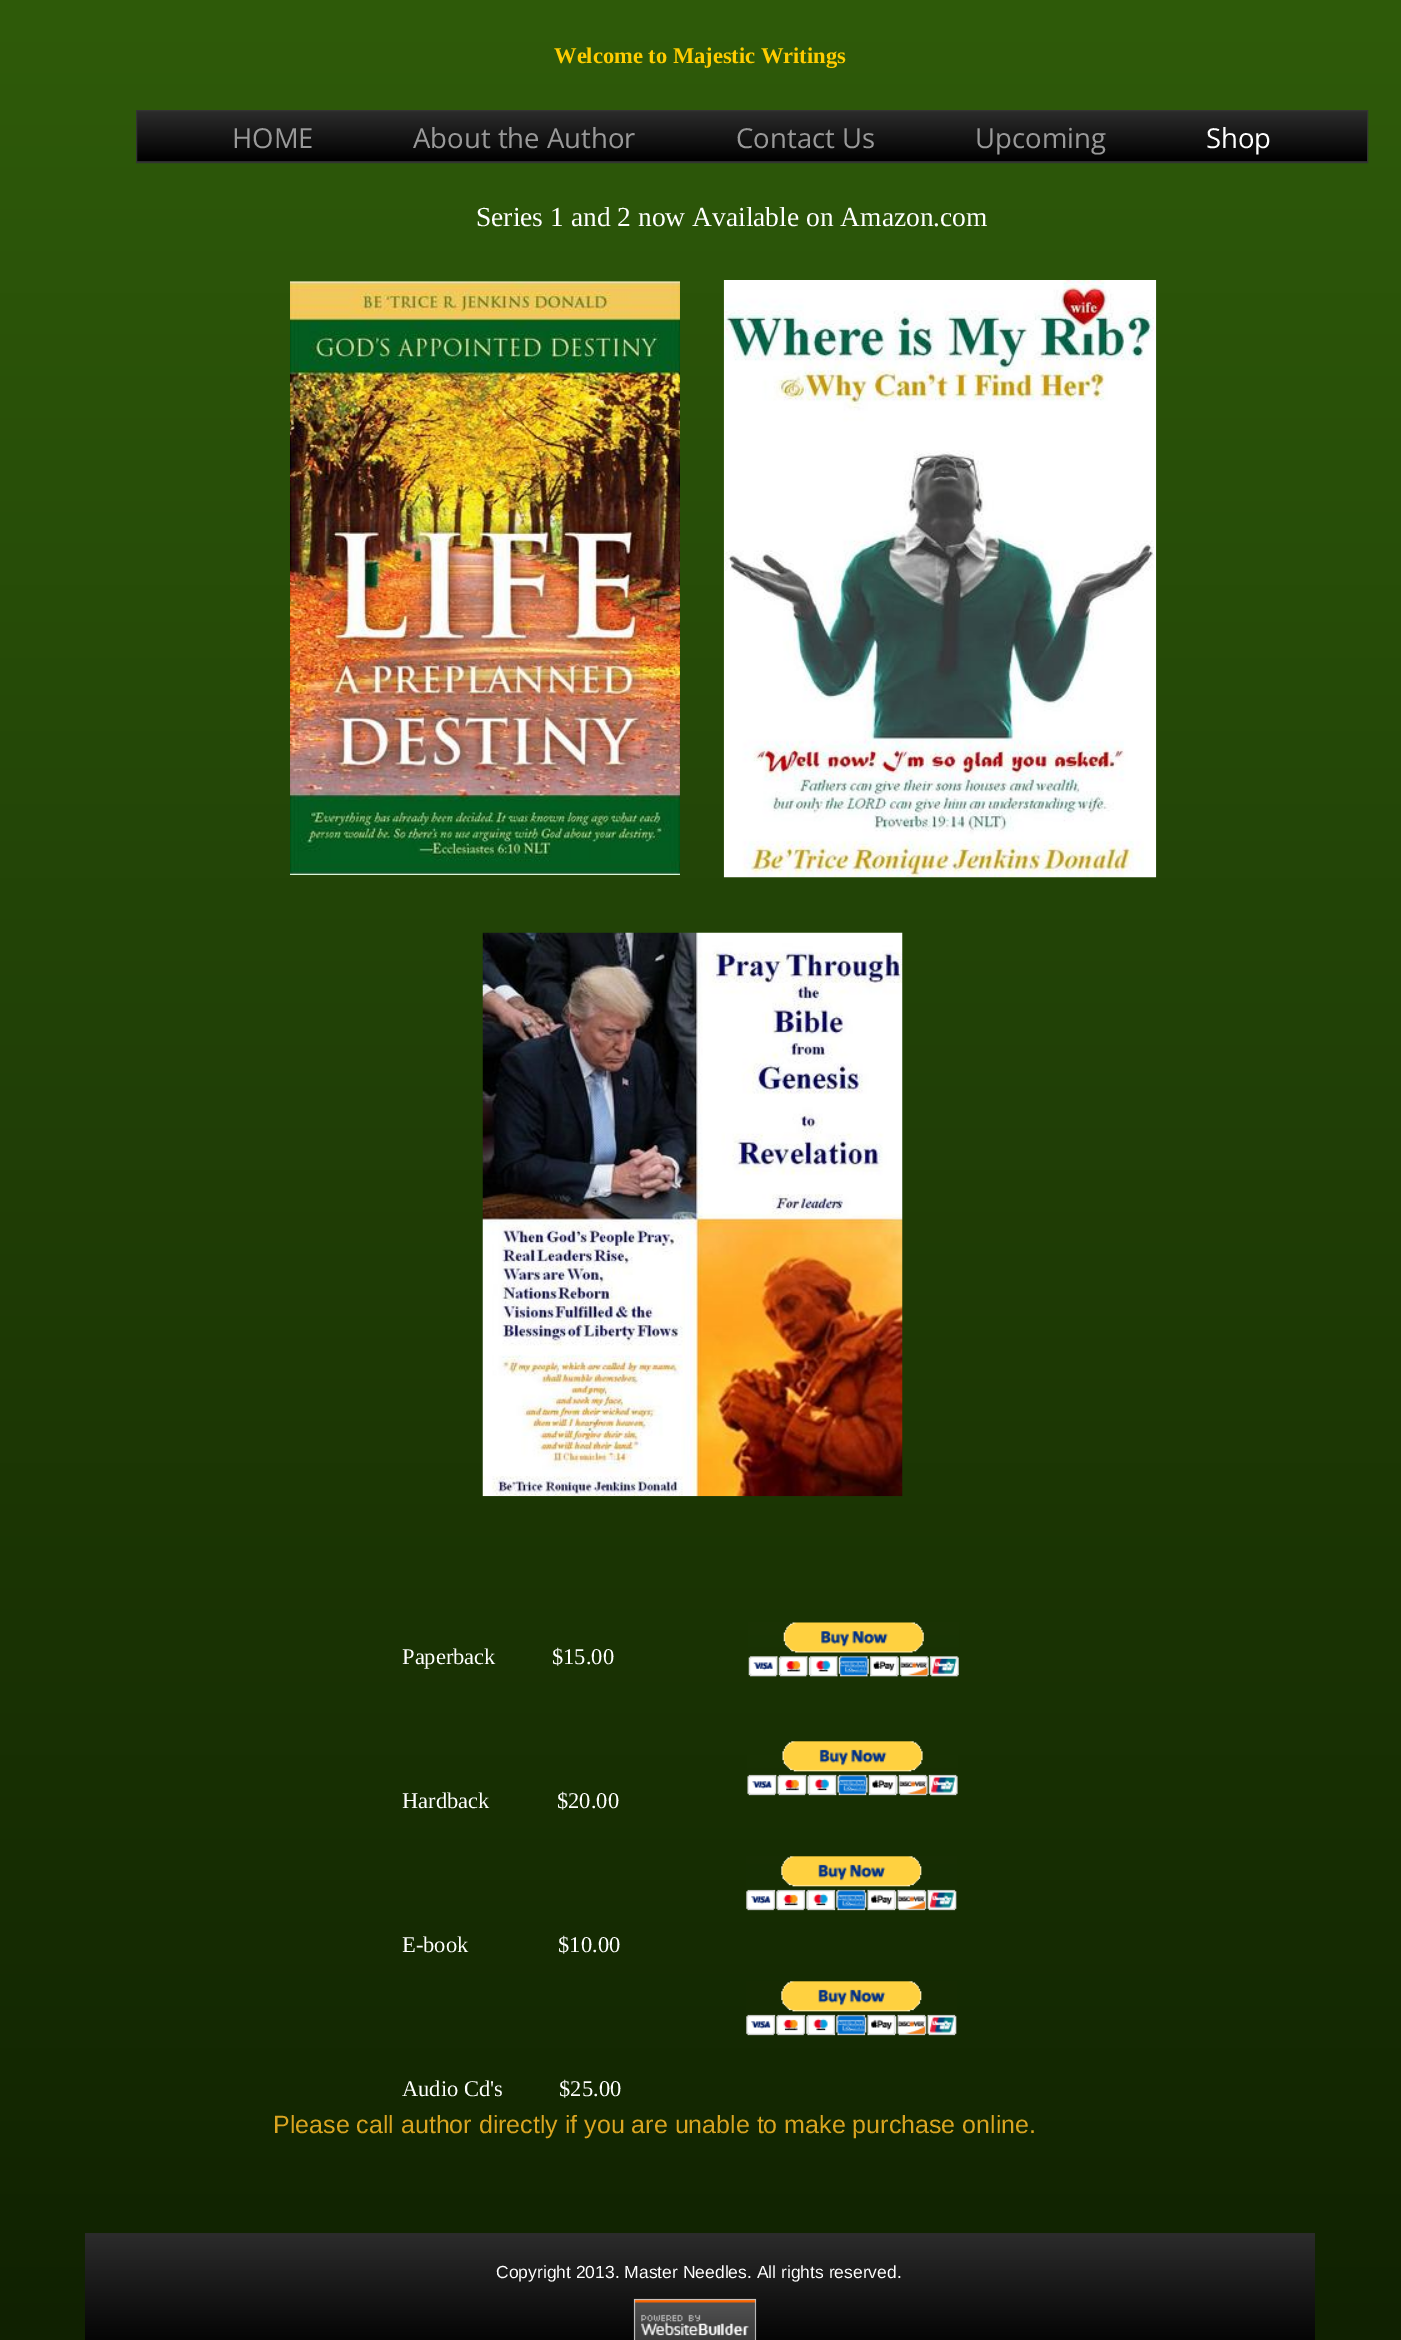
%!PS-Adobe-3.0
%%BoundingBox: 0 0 1401 2340
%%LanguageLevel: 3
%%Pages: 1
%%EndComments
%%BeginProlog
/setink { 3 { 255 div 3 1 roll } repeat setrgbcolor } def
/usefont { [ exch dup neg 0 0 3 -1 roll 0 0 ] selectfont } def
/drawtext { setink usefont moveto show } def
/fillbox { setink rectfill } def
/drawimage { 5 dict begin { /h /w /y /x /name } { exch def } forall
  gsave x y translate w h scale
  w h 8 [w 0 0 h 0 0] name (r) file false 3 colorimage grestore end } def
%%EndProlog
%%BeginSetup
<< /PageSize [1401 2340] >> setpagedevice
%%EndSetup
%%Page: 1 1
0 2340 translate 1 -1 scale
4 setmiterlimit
0 0 1401 2340 255 255 255 fillbox
gsave 0 0 moveto 1401 0 lineto 1401 2340 lineto 0 2340 lineto closepath clip newpath
<< /ShadingType 2 /ColorSpace /DeviceRGB /Coords [750 0 750 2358] /Extend [true true] /Function << /FunctionType 2 /Domain [0 1] /C0 [0.184 0.357 0.039] /C1 [0.063 0.129 0.004] /N 1 >> >> shfill grestore
(Welcome to Majestic Writings) 554 63 /LiberationSerif-Bold 22.5 255 204 0 drawtext
gsave 137 111 moveto 1367 111 lineto 1367 161 lineto 137 161 lineto closepath clip newpath
<< /ShadingType 2 /ColorSpace /DeviceRGB /Coords [752 111 752 161] /Extend [true true] /Function << /FunctionType 2 /Domain [0 1] /C0 [0.173 0.173 0.173] /C1 [0 0 0] /N 1 >> >> shfill grestore
gsave 136 161 moveto 1368 161 lineto 1368 162 lineto 136 162 lineto closepath clip newpath
<< /ShadingType 2 /ColorSpace /DeviceRGB /Coords [752 161 752 211] /Extend [true true] /Function << /FunctionType 2 /Domain [0 1] /C0 [0.173 0.173 0.173] /C1 [0 0 0] /N 1 >> >> shfill grestore
51 51 51 setink
136.5 110.5 1231 52 rectstroke
(HOME) 232 148 /OpenSans-Regular 27.5 153 153 153 drawtext
(About the Author) 413 148 /OpenSans-Regular 27.5 153 153 153 drawtext
(Contact Us) 736 148 /OpenSans-Regular 27.5 153 153 153 drawtext
(Upcoming) 975 148 /OpenSans-Regular 27.5 153 153 153 drawtext
(Shop) 1206 148 /OpenSans-Regular 27.5 255 255 255 drawtext
(Series 1 and 2 now Available on Amazon.com) 476 226 /LiberationSerif-Regular 27.5 255 255 255 drawtext
(assets/img1.rgb) 290 281 390 594 drawimage
(assets/img2.rgb) 723 280 434 598 drawimage
(assets/img3.rgb) 482 932 421 565 drawimage
(Paperback          $15.00) 402 1664 /LiberationSerif-Regular 22.5 255 255 255 drawtext
(Hardback            $20.00) 402 1808 /LiberationSerif-Regular 22.5 255 255 255 drawtext
(E-book                $10.00) 402 1952 /LiberationSerif-Regular 22.5 255 255 255 drawtext
(Audio Cd's          $25.00) 402 2096 /LiberationSerif-Regular 22.5 255 255 255 drawtext
(assets/img4.rgb) 748 1622 211 55 drawimage
(assets/img5.rgb) 747 1741 211 55 drawimage
(assets/img6.rgb) 746 1856 211 55 drawimage
(assets/img7.rgb) 746 1981 211 55 drawimage
(Please call author directly if you are unable to make purchase online.) 273 2133 /LiberationSans-Regular 25 218 165 32 drawtext
gsave 85 2233 moveto 1315 2233 lineto 1315 2340 lineto 85 2340 lineto closepath clip newpath
<< /ShadingType 2 /ColorSpace /DeviceRGB /Coords [700 2233 700 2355] /Extend [true true] /Function << /FunctionType 2 /Domain [0 1] /C0 [0.173 0.173 0.173] /C1 [0 0 0] /N 1 >> >> shfill grestore
(Copyright 2013. Master Needles. All rights reserved.) 496 2278 /LiberationSans-Regular 17.5 255 255 255 drawtext
(assets/img8.rgb) 633 2298 124 42 drawimage
showpage
%%EOF
